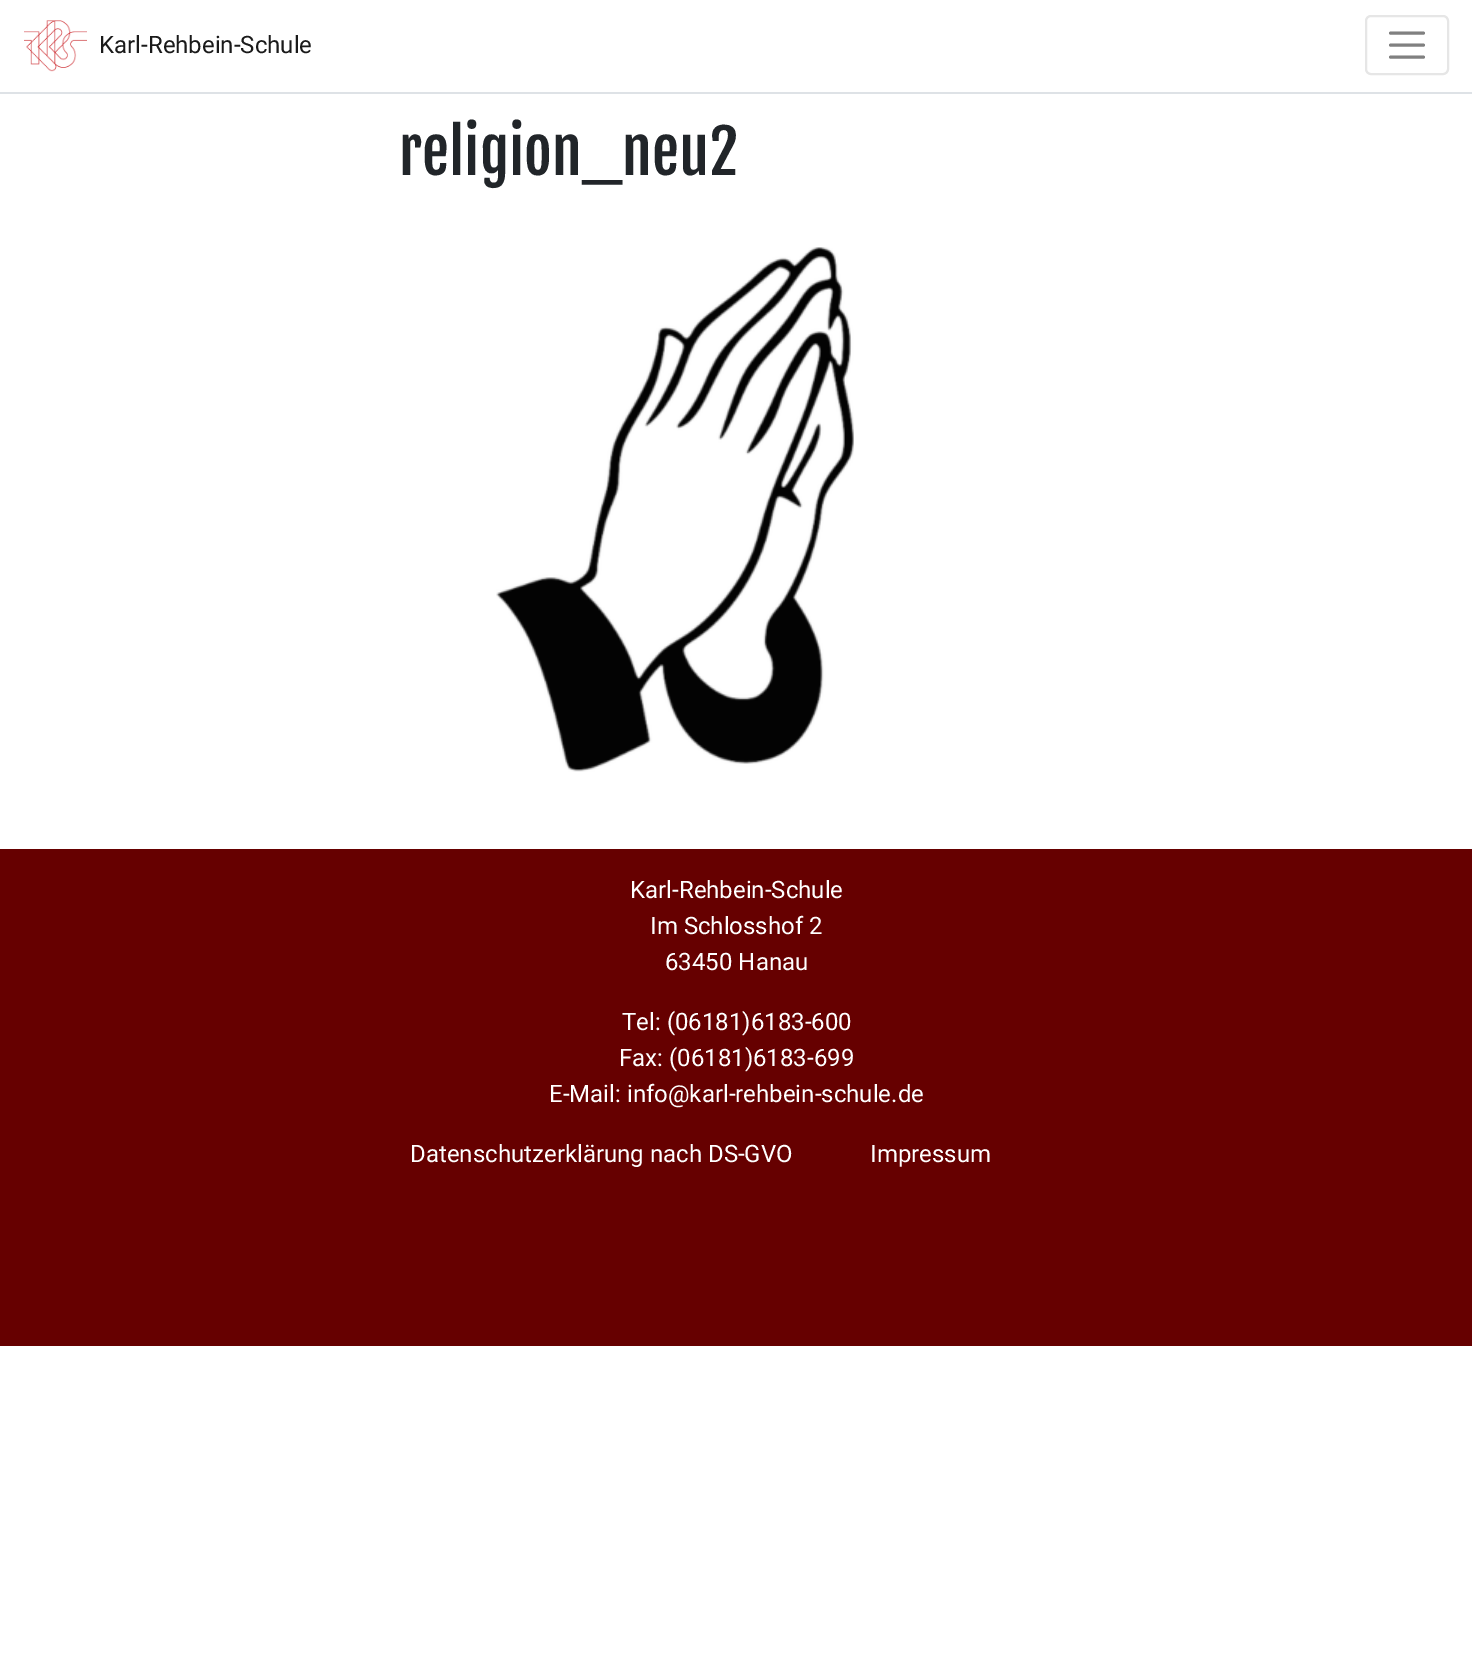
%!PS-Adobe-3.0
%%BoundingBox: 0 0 1472 1654
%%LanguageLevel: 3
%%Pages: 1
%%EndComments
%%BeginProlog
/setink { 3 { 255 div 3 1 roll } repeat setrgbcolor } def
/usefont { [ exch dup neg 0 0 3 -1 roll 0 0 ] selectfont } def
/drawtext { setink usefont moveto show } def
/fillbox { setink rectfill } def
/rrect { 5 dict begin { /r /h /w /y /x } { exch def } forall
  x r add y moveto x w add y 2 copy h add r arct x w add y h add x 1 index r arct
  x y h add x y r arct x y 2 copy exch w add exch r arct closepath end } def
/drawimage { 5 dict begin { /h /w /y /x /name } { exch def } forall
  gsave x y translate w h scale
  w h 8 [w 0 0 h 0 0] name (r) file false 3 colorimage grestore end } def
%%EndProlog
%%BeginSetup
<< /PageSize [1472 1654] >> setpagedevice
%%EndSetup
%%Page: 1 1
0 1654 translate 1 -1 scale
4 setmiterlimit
0 0 1472 1654 255 255 255 fillbox
0 92 1472 2 222 226 230 fillbox
(assets/img1.rgb) 24 20 63 52 drawimage
(Karl-Rehbein-Schule) 99 53 /Roboto-Regular 24 26 26 26 drawtext
230 230 230 setink
2 setlinewidth
1366 16 82 58 5 rrect stroke
128 128 128 setink
3 setlinewidth
1 setlinecap
1390.5 33 moveto 1423.5 33 lineto 1390.5 45 moveto 1423.5 45 lineto 1390.5 57 moveto 1423.5 57 lineto stroke
(religion_neu2) 399 175 /FjallaOne-Regular 60 33 37 41 drawtext
(assets/img2.rgb) 496 247 358 525 drawimage
0 849 1472 497 102 0 0 fillbox
(Karl-Rehbein-Schule) 630 898 /Roboto-Regular 24 255 255 255 drawtext
(Im Schlosshof 2) 650 934 /Roboto-Regular 24 255 255 255 drawtext
(63450 Hanau) 665 970 /Roboto-Regular 24 255 255 255 drawtext
(Tel: \(06181\)6183-600) 622 1030 /Roboto-Regular 24 255 255 255 drawtext
(Fax: \(06181\)6183-699) 619 1066 /Roboto-Regular 24 255 255 255 drawtext
(E-Mail: info@karl-rehbein-schule.de) 549 1102 /Roboto-Regular 24 255 255 255 drawtext
(Datenschutzerklärung nach DS-GVO) 410 1162 /Roboto-Regular 24 255 255 255 drawtext
(Impressum) 870 1162 /Roboto-Regular 24 255 255 255 drawtext
showpage
%%EOF
